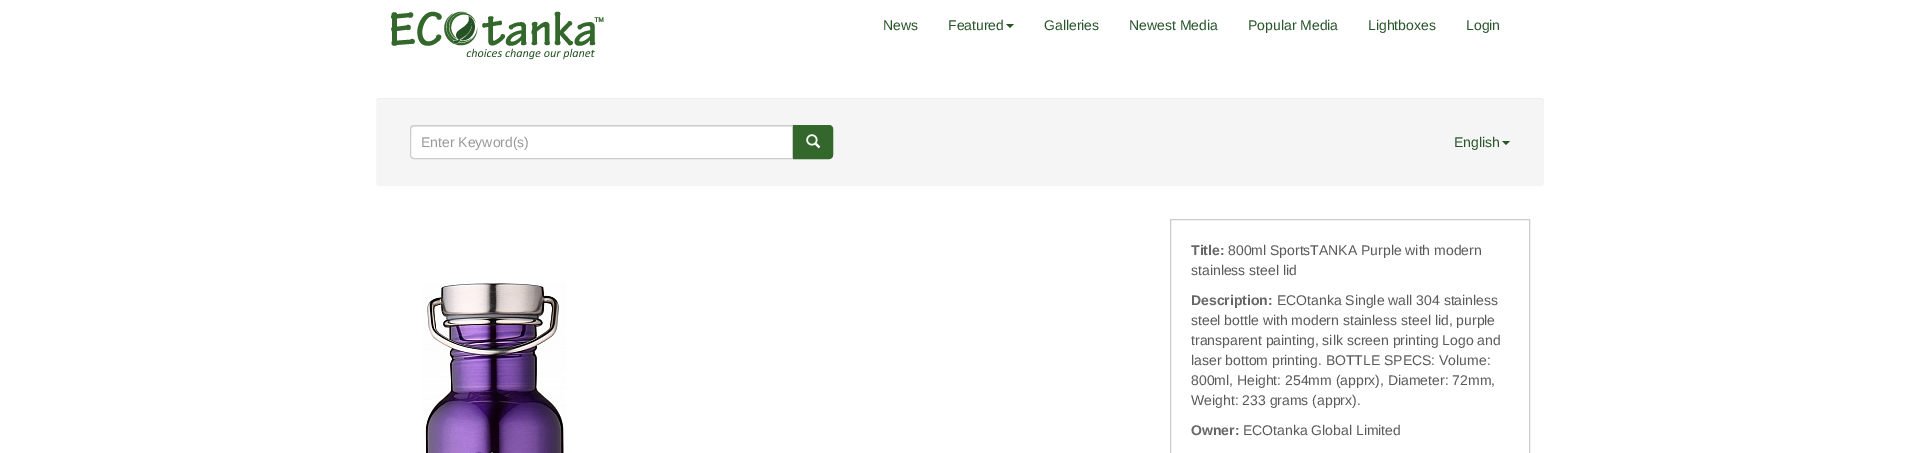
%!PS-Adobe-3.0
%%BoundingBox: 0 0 1920 453
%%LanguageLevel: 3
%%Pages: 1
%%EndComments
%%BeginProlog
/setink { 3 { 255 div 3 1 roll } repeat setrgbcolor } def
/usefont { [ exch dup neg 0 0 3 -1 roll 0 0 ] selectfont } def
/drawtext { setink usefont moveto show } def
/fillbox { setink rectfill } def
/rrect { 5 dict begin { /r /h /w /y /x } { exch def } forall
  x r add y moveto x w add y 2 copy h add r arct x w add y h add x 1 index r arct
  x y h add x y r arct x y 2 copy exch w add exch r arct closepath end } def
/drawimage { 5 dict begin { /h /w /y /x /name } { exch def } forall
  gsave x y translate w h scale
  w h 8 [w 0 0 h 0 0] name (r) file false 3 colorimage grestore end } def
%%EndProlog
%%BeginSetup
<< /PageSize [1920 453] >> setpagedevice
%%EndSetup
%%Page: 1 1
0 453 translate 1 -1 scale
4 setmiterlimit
0 0 1920 453 255 255 255 fillbox
(assets/img1.rgb) 391 11 213 49 drawimage
(News) 883 30 /LiberationSans-Regular 14 40 84 41 drawtext
(Featured) 948 30 /LiberationSans-Regular 14 40 84 41 drawtext
39 84 37 setink
1006 24 moveto 1014 24 lineto 1010 28 lineto closepath fill
(Galleries) 1044 30 /LiberationSans-Regular 14 40 84 41 drawtext
(Newest Media) 1129 30 /LiberationSans-Regular 14 40 84 41 drawtext
(Popular Media) 1248 30 /LiberationSans-Regular 14 40 84 41 drawtext
(Lightboxes) 1368 30 /LiberationSans-Regular 14 40 84 41 drawtext
(Login) 1466 30 /LiberationSans-Regular 14 40 84 41 drawtext
245 245 245 setink
375 97 1170 90 4 rrect fill
233 233 233 setink
379 99 moveto 1541 99 lineto 1543 99 1544 100 1544 102 curveto 1544 101 lineto 1544 99 1543 98 1541 98 curveto 379 98 lineto 377 98 376 99 376 101 curveto 376 102 lineto 376 100 377 99 379 99 curveto closepath fill
255 255 255 setink
375.5 97.5 1169 89 3.5 rrect stroke
414 125 moveto 793 125 lineto 793 159 lineto 414 159 lineto 412 159 410 157 410 155 curveto 410 129 lineto 410 127 412 125 414 125 curveto closepath fill
236 236 236 setink
414 127 moveto 792 127 lineto 792 126 lineto 414 126 lineto 412 126 411 127 411 129 curveto 411 130 lineto 411 128 412 127 414 127 curveto closepath fill
204 204 204 setink
414 125.5 moveto 792.5 125.5 lineto 792.5 158.5 lineto 414 158.5 lineto 412 158.5 410.5 157 410.5 155 curveto 410.5 129 lineto 410.5 127 412 125.5 414 125.5 curveto closepath stroke
(Enter Keyword\(s\)) 421 147 /LiberationSans-Regular 14 153 153 153 drawtext
52 103 43 setink
793.5 125.5 moveto 829 125.5 lineto 831 125.5 832.5 127 832.5 129 curveto 832.5 155 lineto 832.5 157 831 158.5 829 158.5 curveto 793.5 158.5 lineto closepath gsave fill grestore
stroke
(assets/img2.rgb) 806 134 15 15 drawimage
(English) 1454 147 /LiberationSans-Regular 14 40 84 41 drawtext
1502 141 moveto 1510 141 lineto 1506 145 lineto closepath fill
(assets/img3.rgb) 422 283 144 170 drawimage
204 204 204 setink
1170.5 219.5 359 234 rectstroke
(Title:) 1191 255 /LiberationSans-Bold 14 102 102 102 drawtext
(800ml SportsTANKA Purple with modern) 1228 255 /LiberationSans-Regular 14 90 90 90 drawtext
(stainless steel lid) 1191 275 /LiberationSans-Regular 14 90 90 90 drawtext
(Description:) 1191 305 /LiberationSans-Bold 14 102 102 102 drawtext
(ECOtanka Single wall 304 stainless) 1277 305 /LiberationSans-Regular 14 90 90 90 drawtext
(steel bottle with modern stainless steel lid, purple) 1191 325 /LiberationSans-Regular 14 90 90 90 drawtext
(transparent painting, silk screen printing Logo and) 1191 345 /LiberationSans-Regular 14 90 90 90 drawtext
(laser bottom printing. BOTTLE SPECS: Volume:) 1191 365 /LiberationSans-Regular 14 90 90 90 drawtext
(800ml, Height: 254mm \(apprx\), Diameter: 72mm,) 1191 385 /LiberationSans-Regular 14 90 90 90 drawtext
(Weight: 233 grams \(apprx\).) 1191 405 /LiberationSans-Regular 14 90 90 90 drawtext
(Owner:) 1191 435 /LiberationSans-Bold 14 102 102 102 drawtext
(ECOtanka Global Limited) 1243 435 /LiberationSans-Regular 14 90 90 90 drawtext
showpage
%%EOF
